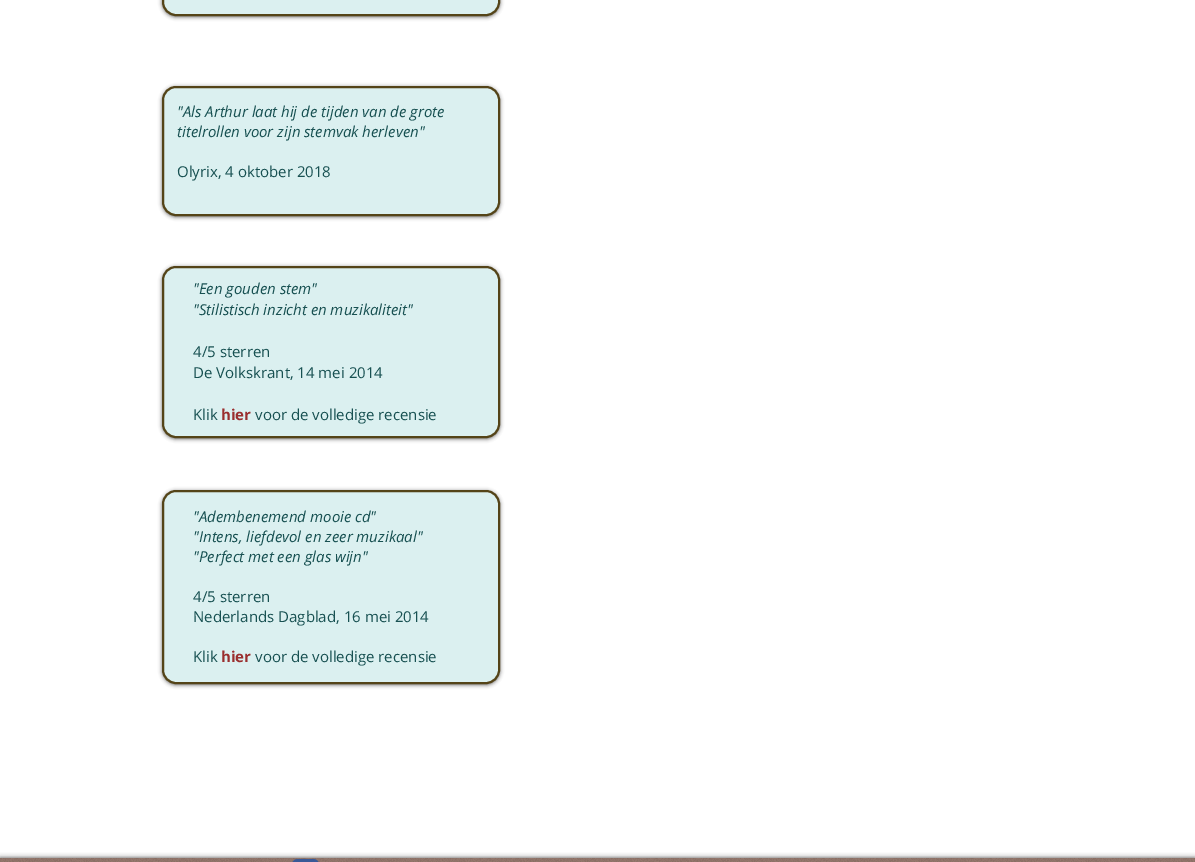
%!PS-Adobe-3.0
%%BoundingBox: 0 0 1195 862
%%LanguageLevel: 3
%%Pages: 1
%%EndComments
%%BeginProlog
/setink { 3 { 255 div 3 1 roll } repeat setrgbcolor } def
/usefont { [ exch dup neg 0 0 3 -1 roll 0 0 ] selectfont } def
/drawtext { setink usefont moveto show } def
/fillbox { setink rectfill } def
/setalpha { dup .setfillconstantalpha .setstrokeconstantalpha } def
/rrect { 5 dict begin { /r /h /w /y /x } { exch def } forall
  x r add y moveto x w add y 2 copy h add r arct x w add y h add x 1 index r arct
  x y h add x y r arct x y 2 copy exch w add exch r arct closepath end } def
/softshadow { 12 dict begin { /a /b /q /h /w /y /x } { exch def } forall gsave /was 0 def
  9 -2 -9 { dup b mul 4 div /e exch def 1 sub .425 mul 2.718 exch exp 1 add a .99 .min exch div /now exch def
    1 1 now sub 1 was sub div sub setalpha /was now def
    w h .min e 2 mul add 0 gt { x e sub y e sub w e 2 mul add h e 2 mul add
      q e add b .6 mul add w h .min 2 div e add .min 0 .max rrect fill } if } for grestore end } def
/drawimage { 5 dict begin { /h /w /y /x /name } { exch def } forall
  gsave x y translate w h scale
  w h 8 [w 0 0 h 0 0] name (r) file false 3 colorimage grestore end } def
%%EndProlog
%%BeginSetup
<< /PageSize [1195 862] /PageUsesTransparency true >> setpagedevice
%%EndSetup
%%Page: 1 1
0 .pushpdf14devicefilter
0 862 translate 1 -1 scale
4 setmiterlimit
0 0 1195 862 255 255 255 fillbox
gsave
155 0 moveto 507 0 lineto 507 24 lineto 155 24 lineto closepath 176 -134 moveto 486 -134 lineto 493.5 -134 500 -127.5 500 -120 curveto 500 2 lineto 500 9.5 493.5 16 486 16 curveto 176 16 lineto 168.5 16 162 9.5 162 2 curveto 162 -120 lineto 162 -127.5 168.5 -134 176 -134 curveto closepath eoclip newpath
0 0 0 setink
162 -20 338 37 14 2 0.6 softshadow
grestore
0.43 setalpha
172 220 220 setink
163 -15 336 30 13 rrect fill
1 setalpha
84 68 24 setink
2 setlinewidth
163 -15 336 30 13 rrect stroke
gsave
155 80 moveto 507 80 lineto 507 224 lineto 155 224 lineto closepath 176 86 moveto 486 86 lineto 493.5 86 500 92.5 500 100 curveto 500 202 lineto 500 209.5 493.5 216 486 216 curveto 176 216 lineto 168.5 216 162 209.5 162 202 curveto 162 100 lineto 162 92.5 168.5 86 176 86 curveto closepath eoclip newpath
0 0 0 setink
162 87 338 130 14 2 0.6 softshadow
grestore
0.43 setalpha
172 220 220 setink
163 87 336 128 13 rrect fill
1 setalpha
84 68 24 setink
163 87 336 128 13 rrect stroke
("Als Arthur laat hij de tijden van de grote) 177 117 /OpenSans-Italic 15 24 81 82 drawtext
(titelrollen voor zijn stemvak herleven") 177 137 /OpenSans-Italic 15 24 81 82 drawtext
(Olyrix, 4 oktober 2018) 177 177 /OpenSans-Regular 15 24 81 82 drawtext
gsave
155 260 moveto 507 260 lineto 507 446 lineto 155 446 lineto closepath 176 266 moveto 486 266 lineto 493.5 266 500 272.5 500 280 curveto 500 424 lineto 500 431.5 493.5 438 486 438 curveto 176 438 lineto 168.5 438 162 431.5 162 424 curveto 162 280 lineto 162 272.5 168.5 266 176 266 curveto closepath eoclip newpath
0 0 0 setink
162 267 338 172 14 2 0.6 softshadow
grestore
0.43 setalpha
172 220 220 setink
163 267 336 170 13 rrect fill
1 setalpha
84 68 24 setink
163 267 336 170 13 rrect stroke
("Een gouden stem") 193 294 /OpenSans-Italic 15 24 81 82 drawtext
("Stilistisch inzicht en muzikaliteit") 193 315 /OpenSans-Italic 15 24 81 82 drawtext
(4/5 sterren) 193 357 /OpenSans-Regular 15 24 81 82 drawtext
(De Volkskrant, 14 mei 2014) 193 378 /OpenSans-Regular 15 24 81 82 drawtext
(Klik) 193 420 /OpenSans-Regular 15 24 81 82 drawtext
(hier) 221 420 /OpenSans-Bold 15 154 46 46 drawtext
(voor de volledige recensie) 255 420 /OpenSans-Regular 15 24 81 82 drawtext
gsave
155 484 moveto 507 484 lineto 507 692 lineto 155 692 lineto closepath 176 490 moveto 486 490 lineto 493.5 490 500 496.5 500 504 curveto 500 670 lineto 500 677.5 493.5 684 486 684 curveto 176 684 lineto 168.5 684 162 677.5 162 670 curveto 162 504 lineto 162 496.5 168.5 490 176 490 curveto closepath eoclip newpath
0 0 0 setink
162 491 338 194 14 2 0.6 softshadow
grestore
0.43 setalpha
172 220 220 setink
163 491 336 192 13 rrect fill
1 setalpha
84 68 24 setink
163 491 336 192 13 rrect stroke
("Adembenemend mooie cd") 193 522 /OpenSans-Italic 15 24 81 82 drawtext
("Intens, liefdevol en zeer muzikaal") 193 542 /OpenSans-Italic 15 24 81 82 drawtext
("Perfect met een glas wijn") 193 562 /OpenSans-Italic 15 24 81 82 drawtext
(4/5 sterren) 193 602 /OpenSans-Regular 15 24 81 82 drawtext
(Nederlands Dagblad, 16 mei 2014) 193 622 /OpenSans-Regular 15 24 81 82 drawtext
(Klik) 193 662 /OpenSans-Regular 15 24 81 82 drawtext
(hier) 221 662 /OpenSans-Bold 15 154 46 46 drawtext
(voor de volledige recensie) 255 662 /OpenSans-Regular 15 24 81 82 drawtext
0 0 0 setink
0 858 1195 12 0 2.5 0.7 softshadow
0 858 1195 4 146 117 106 fillbox
(assets/img1.rgb) 0 858 1195 4 drawimage
(assets/img2.rgb) 292 859 27 3 drawimage
.poppdf14devicefilter showpage
%%EOF
